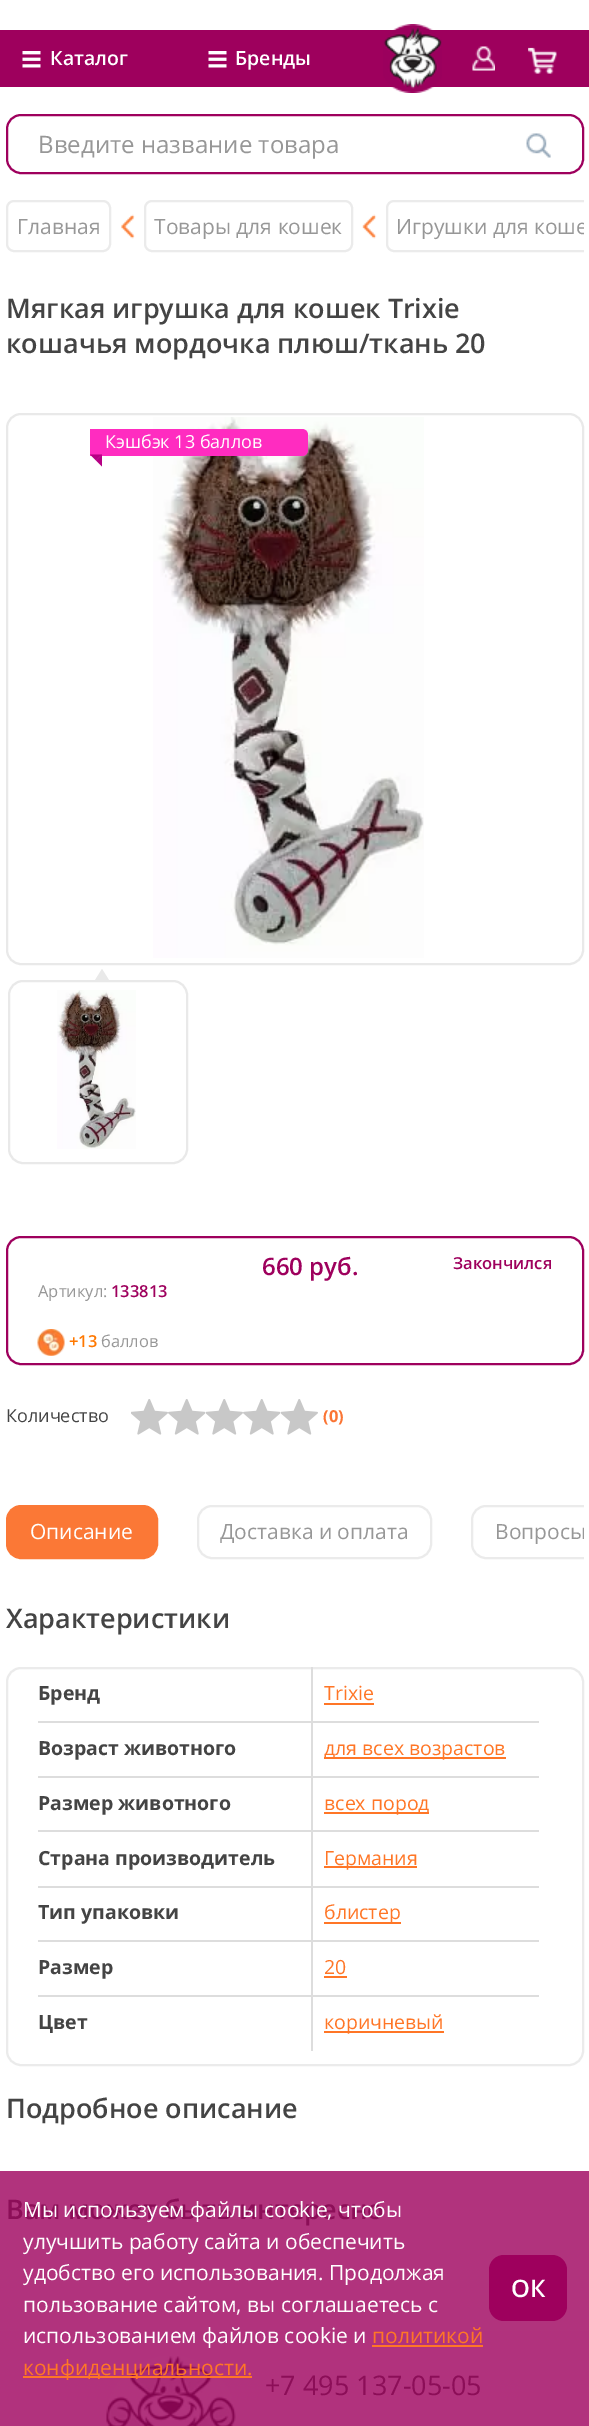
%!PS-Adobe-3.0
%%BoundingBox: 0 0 589 2426
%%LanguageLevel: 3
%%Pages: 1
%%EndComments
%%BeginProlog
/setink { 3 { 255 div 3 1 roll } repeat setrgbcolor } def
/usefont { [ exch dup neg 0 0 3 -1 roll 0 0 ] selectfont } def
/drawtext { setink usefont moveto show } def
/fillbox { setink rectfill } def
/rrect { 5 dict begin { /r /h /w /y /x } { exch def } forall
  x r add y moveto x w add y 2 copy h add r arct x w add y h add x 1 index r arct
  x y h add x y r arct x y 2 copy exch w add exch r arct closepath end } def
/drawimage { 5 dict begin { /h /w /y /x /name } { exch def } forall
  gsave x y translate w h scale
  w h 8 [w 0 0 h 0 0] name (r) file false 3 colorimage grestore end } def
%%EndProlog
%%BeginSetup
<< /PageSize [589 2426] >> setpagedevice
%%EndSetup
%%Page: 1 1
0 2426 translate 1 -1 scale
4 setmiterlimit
0 0 589 2426 255 255 255 fillbox
0 2171 589 160 177 51 125 fillbox
0 30 589 57 158 0 93 fillbox
(assets/img1.rgb) 22 51 19 17 drawimage
(Каталог) 50 65 /OpenSans-SemiBold 19.5 255 255 255 drawtext
(assets/img1.rgb) 208 51 19 17 drawimage
(Бренды) 235 65 /OpenSans-SemiBold 19.5 255 255 255 drawtext
(assets/img2.rgb) 383 24 59 69 drawimage
(assets/img3.rgb) 472 46 23 25 drawimage
(assets/img4.rgb) 528 47 29 27 drawimage
158 0 93 setink
2 setlinewidth
7 115 576 58 14 rrect stroke
(Введите название товара) 38 153 /OpenSans-Regular 24 151 151 151 drawtext
(assets/img5.rgb) 526 133 25 25 drawimage
235 235 235 setink
7 201 103 50 7 rrect stroke
(Главная) 17 234 /OpenSans-Regular 21 151 151 151 drawtext
(assets/img6.rgb) 121 214 14 25 drawimage
235 235 235 setink
145 201 207 50 7 rrect stroke
(Товары для кошек) 154 234 /OpenSans-Regular 21 151 151 151 drawtext
(assets/img7.rgb) 362 214 15 25 drawimage
gsave
6 200 578 67 rectclip
235 235 235 setink
387 201 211 50 7 rrect stroke
(Игрушки для коше) 396 234 /OpenSans-Regular 21 151 151 151 drawtext
grestore
(Мягкая игрушка для кошек Trixie) 6 318 /OpenSans-SemiBold 27 68 68 68 drawtext
(кошачья мордочка плюш/ткань 20) 6 353 /OpenSans-SemiBold 27 68 68 68 drawtext
233 233 233 setink
7 414 576 550 14 rrect stroke
(assets/img8.rgb) 153 417 271 541 drawimage
255 44 192 setink
90 429 moveto 302 429 lineto 305.5 429 308 431.5 308 435 curveto 308 450 lineto 308 453.5 305.5 456 302 456 curveto 90 456 lineto closepath fill
(Кэшбэк 13 баллов) 105 448 /OpenSans-Regular 18 255 255 255 drawtext
182 0 132 setink
90 454.5 moveto 102 454.5 lineto 96 460.5 lineto closepath fill
102 454.5 moveto 102 466.5 lineto 96 460.5 lineto closepath fill
233 233 233 setink
9 981 178 182 14 rrect stroke
109.5 981 moveto 94.5 981 lineto 102 969 lineto closepath fill
(assets/img9.rgb) 57 990 79 159 drawimage
158 0 93 setink
7 1237 576 127 14 rrect stroke
(660 руб.) 262 1275 /OpenSans-SemiBold 24 158 0 93 drawtext
(Закончился) 453 1269 /OpenSans-SemiBold 16.5 158 0 93 drawtext
(Артикул:) 38 1297 /OpenSans-Regular 16.5 151 151 151 drawtext
(133813) 111 1297 /OpenSans-SemiBold 16.5 158 0 93 drawtext
(assets/img10.rgb) 37 1329 28 27 drawimage
(+13) 69 1347 /OpenSans-SemiBold 16.5 255 120 0 drawtext
(баллов) 101 1347 /OpenSans-Regular 16.5 151 151 151 drawtext
(Количество) 6 1422 /OpenSans-Regular 18 68 68 68 drawtext
(assets/img11.rgb) 131 1399 37 36 drawimage
(assets/img12.rgb) 168 1399 38 36 drawimage
(assets/img11.rgb) 206 1399 37 36 drawimage
(assets/img12.rgb) 243 1399 38 36 drawimage
(assets/img11.rgb) 281 1399 37 36 drawimage
(\(0\)) 323 1422 /OpenSans-Bold 16.5 251 117 52 drawtext
251 120 54 setink
7 1506 150 52 14 rrect gsave fill grestore
stroke
(Описание) 30 1539 /OpenSans-Regular 21 255 255 255 drawtext
235 235 235 setink
198 1506 233 52 14 rrect stroke
(Доставка и оплата) 220 1539 /OpenSans-Regular 21 151 151 151 drawtext
gsave
6 1500 578 75 rectclip
235 235 235 setink
472 1506 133 52 14 rrect stroke
(Вопросы) 495 1539 /OpenSans-Regular 21 151 151 151 drawtext
grestore
(Характеристики) 6 1628 /OpenSans-SemiBold 27 68 68 68 drawtext
235 235 235 setink
7 1668 576 397 14 rrect stroke
311 1995 2 56 221 221 221 fillbox
311 1995 228 2 221 221 221 fillbox
311 1940 2 57 221 221 221 fillbox
311 1940 228 2 221 221 221 fillbox
311 1886 2 55 221 221 221 fillbox
311 1886 228 2 221 221 221 fillbox
311 1830 2 57 221 221 221 fillbox
311 1830 228 2 221 221 221 fillbox
311 1776 2 56 221 221 221 fillbox
311 1776 228 2 221 221 221 fillbox
311 1721 2 57 221 221 221 fillbox
311 1721 228 2 221 221 221 fillbox
311 1667 2 55 221 221 221 fillbox
38 1721 274 2 221 221 221 fillbox
(Бренд) 38 1700 /OpenSans-Bold 19.5 68 68 68 drawtext
(Trixie) 324 1700 /OpenSans-Regular 19.5 255 118 38 drawtext
324 1703 50 2 255 118 38 fillbox
38 1776 274 2 221 221 221 fillbox
(Возраст животного) 38 1755 /OpenSans-Bold 19.5 68 68 68 drawtext
324 1757 182 2 255 118 38 fillbox
(для всех возрастов) 324 1755 /OpenSans-Regular 19.5 255 118 38 drawtext
38 1830 274 2 221 221 221 fillbox
(Размер животного) 38 1810 /OpenSans-Bold 19.5 68 68 68 drawtext
324 1812 105 2 255 118 38 fillbox
(всех пород) 324 1810 /OpenSans-Regular 19.5 255 118 38 drawtext
38 1886 274 2 221 221 221 fillbox
(Страна производитель) 38 1865 /OpenSans-Bold 19.5 68 68 68 drawtext
324 1866 93 2 255 118 38 fillbox
(Германия) 324 1865 /OpenSans-Regular 19.5 255 118 38 drawtext
38 1940 274 2 221 221 221 fillbox
(Тип упаковки) 38 1919 /OpenSans-Bold 19.5 68 68 68 drawtext
324 1922 77 2 255 118 38 fillbox
(блистер) 324 1919 /OpenSans-Regular 19.5 255 118 38 drawtext
38 1995 274 2 221 221 221 fillbox
(Размер) 38 1974 /OpenSans-Bold 19.5 68 68 68 drawtext
(20) 324 1974 /OpenSans-Regular 19.5 255 118 38 drawtext
324 1976 23 2 255 118 38 fillbox
(Цвет) 38 2029 /OpenSans-Bold 19.5 68 68 68 drawtext
324 2031 120 2 255 118 38 fillbox
(коричневый) 324 2029 /OpenSans-Regular 19.5 255 118 38 drawtext
(Подробное описание) 6 2118 /OpenSans-SemiBold 27 68 68 68 drawtext
(Вам может быть интересно) 6 2219 /OpenSans-SemiBold 27 140 14 88 drawtext
0 2331 589 95 177 50 125 fillbox
(assets/img13.rgb) 106 2356 130 70 drawimage
(+7 495 137-05-05) 265 2395 /OpenSans-Regular 27 140 14 88 drawtext
(Мы используем файлы cookie, чтобы) 23 2217 /OpenSans-Regular 21 255 255 255 drawtext
(улучшить работу сайта и обеспечить) 23 2249 /OpenSans-Regular 21 255 255 255 drawtext
(удобство его использования. Продолжая) 23 2280 /OpenSans-Regular 21 255 255 255 drawtext
(пользование сайтом, вы соглашаетесь с) 23 2312 /OpenSans-Regular 21 255 255 255 drawtext
(использованием файлов cookie и) 23 2343 /OpenSans-Regular 21 255 255 255 drawtext
(политикой) 372 2343 /OpenSans-Regular 21 255 118 38 drawtext
372 2345 111 2 255 118 38 fillbox
23 2376 229 2 255 118 38 fillbox
(конфиденциальности.) 23 2375 /OpenSans-Regular 21 255 118 38 drawtext
158 0 93 setink
489 2255 78 66 15 rrect fill
(ОК) 511 2297 /OpenSans-SemiBold 24 255 255 255 drawtext
showpage
%%EOF
